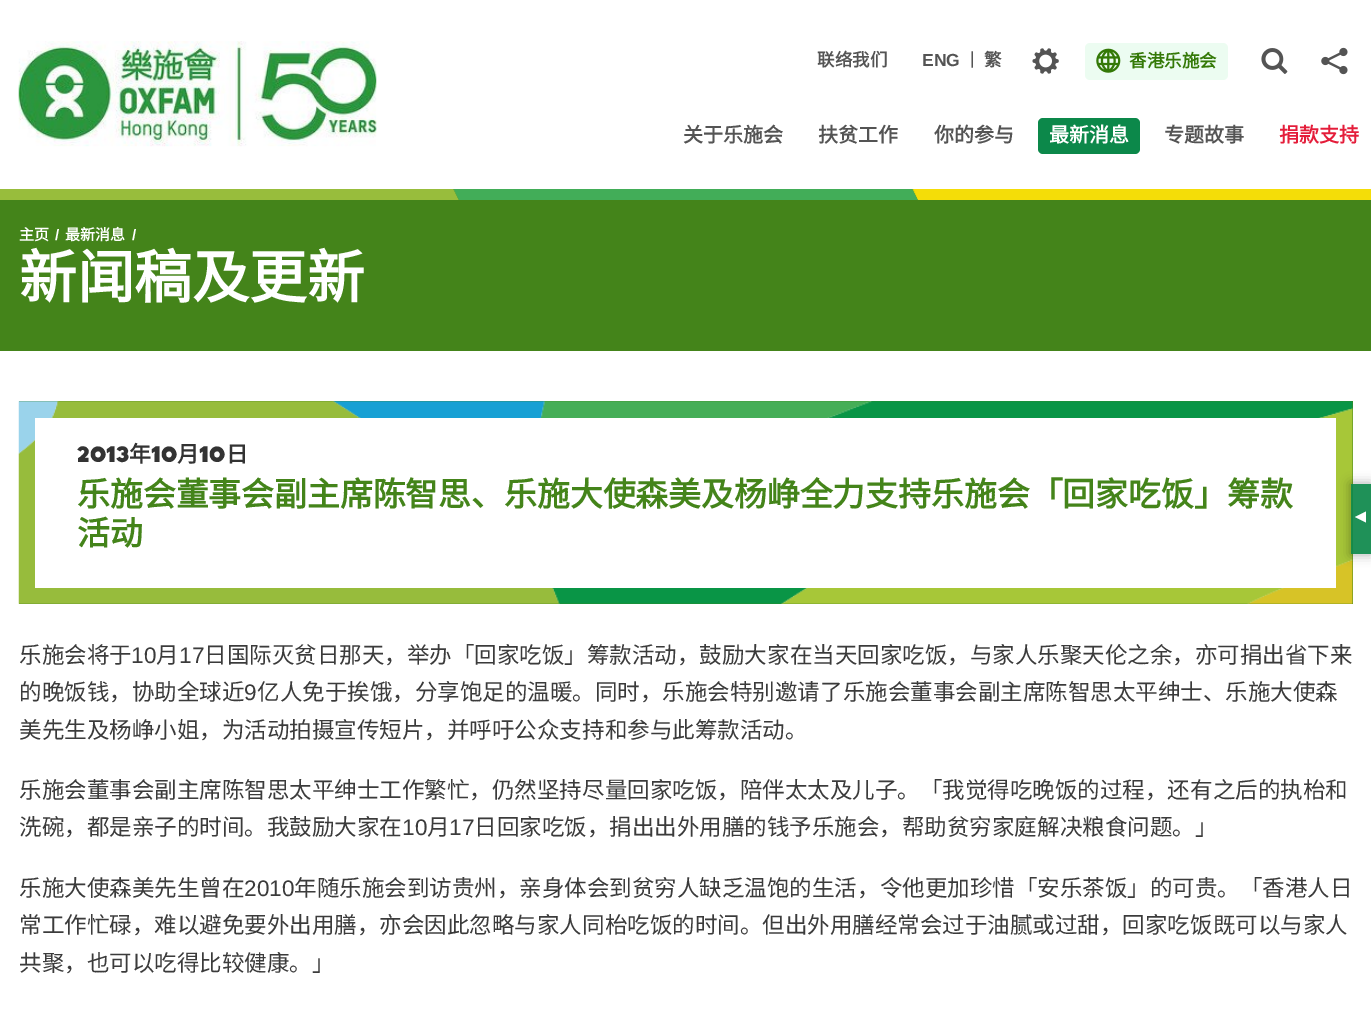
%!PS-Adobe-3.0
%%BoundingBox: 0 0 1371 1013
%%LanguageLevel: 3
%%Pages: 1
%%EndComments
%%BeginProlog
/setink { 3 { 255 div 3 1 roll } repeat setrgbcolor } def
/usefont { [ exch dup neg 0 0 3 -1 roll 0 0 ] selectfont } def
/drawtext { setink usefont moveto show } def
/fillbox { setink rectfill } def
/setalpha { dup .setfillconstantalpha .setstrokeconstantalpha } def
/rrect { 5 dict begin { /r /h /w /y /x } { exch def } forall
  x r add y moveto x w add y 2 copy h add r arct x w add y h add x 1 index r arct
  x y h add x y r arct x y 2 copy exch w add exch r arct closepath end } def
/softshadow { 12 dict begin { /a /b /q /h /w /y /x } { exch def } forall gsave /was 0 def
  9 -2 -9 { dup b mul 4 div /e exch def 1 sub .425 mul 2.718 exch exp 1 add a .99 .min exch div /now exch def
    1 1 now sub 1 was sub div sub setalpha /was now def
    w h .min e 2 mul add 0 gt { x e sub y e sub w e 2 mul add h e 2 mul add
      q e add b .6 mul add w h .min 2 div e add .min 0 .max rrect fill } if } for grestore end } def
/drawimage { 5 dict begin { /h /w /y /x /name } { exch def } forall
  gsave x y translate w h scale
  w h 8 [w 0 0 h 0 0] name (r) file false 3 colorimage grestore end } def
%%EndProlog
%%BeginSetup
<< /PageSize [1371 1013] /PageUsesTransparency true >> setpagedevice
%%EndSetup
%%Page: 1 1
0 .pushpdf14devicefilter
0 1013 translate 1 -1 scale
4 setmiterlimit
0 0 1371 1013 255 255 255 fillbox
(assets/img1.rgb) 18 41 359 106 drawimage
(联络我们) 817 66 /NotoSansCJKSC-Bold 17.5 84 84 84 drawtext
(ENG) 922 66 /LiberationSans-Bold 17.5 84 84 84 drawtext
(|) 970 64 /LiberationSans-Regular 17.5 84 84 84 drawtext
(繁) 984 66 /NotoSansCJKSC-Bold 17.5 84 84 84 drawtext
(assets/img2.rgb) 1032 48 27 26 drawimage
236 252 241 setink
1085 43 143 37 5 rrect fill
(assets/img3.rgb) 1096 48 25 25 drawimage
(香港乐施会) 1129 67 /NotoSansCJKSC-Bold 17.5 52 121 7 drawtext
(assets/img4.rgb) 1261 48 27 26 drawimage
(assets/img5.rgb) 1321 47 27 28 drawimage
(关于乐施会) 683 142 /NotoSansCJKSC-Bold 20 84 84 84 drawtext
(扶贫工作) 818 142 /NotoSansCJKSC-Bold 20 84 84 84 drawtext
(你的参与) 934 142 /NotoSansCJKSC-Bold 20 84 84 84 drawtext
12 136 74 setink
1038 118 102 36 5 rrect fill
(最新消息) 1049 142 /NotoSansCJKSC-Bold 20 255 255 255 drawtext
(专题故事) 1164 142 /NotoSansCJKSC-Bold 20 84 84 84 drawtext
(捐款支持) 1279 142 /NotoSansCJKSC-Bold 20 228 29 58 drawtext
0 189 1371 162 68 132 26 fillbox
(assets/img6.rgb) 0 189 1371 11 drawimage
(主页) 19 240 /NotoSansCJKSC-Bold 15 255 255 255 drawtext
(/) 55 240 /LiberationSans-Bold 15 255 255 255 drawtext
(最新消息) 65 240 /NotoSansCJKSC-Bold 15 255 255 255 drawtext
(/) 132 240 /LiberationSans-Bold 15 255 255 255 drawtext
(新闻稿及更新) 19 298 /NotoSansCJKSC-Bold 57.5 255 255 255 drawtext
19 401 1334 203 68 132 26 fillbox
(assets/img7.rgb) 18 401 1335 203 drawimage
35 418 1301 170 255 255 255 fillbox
(2013) 77 462 /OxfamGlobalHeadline-Regular 22 51 51 51 drawtext
(年) 129 462 /NotoSansCJKSC-Bold 22 51 51 51 drawtext
(10) 151 462 /OxfamGlobalHeadline-Regular 22 51 51 51 drawtext
(月) 177 462 /NotoSansCJKSC-Bold 22 51 51 51 drawtext
(10) 199 462 /OxfamGlobalHeadline-Regular 22 51 51 51 drawtext
(日) 226 462 /NotoSansCJKSC-Bold 22 51 51 51 drawtext
(乐施会董事会副主席陈智思、乐施大使森美及杨峥全力支持乐施会「回家吃饭」筹款) 77 506 /NotoSansCJKSC-Bold 32.85 68 132 26 drawtext
(活动) 77 545 /NotoSansCJKSC-Bold 32.85 68 132 26 drawtext
(乐施会将于) 19 663 /NotoSansCJKSC-Regular 22.52 59 59 59 drawtext
(10) 131 663 /LiberationSans-Regular 22.52 59 59 59 drawtext
(月) 156 663 /NotoSansCJKSC-Regular 22.52 59 59 59 drawtext
(17) 179 663 /LiberationSans-Regular 22.52 59 59 59 drawtext
(日国际灭贫日那天，举办「回家吃饭」筹款活动，鼓励大家在当天回家吃饭，与家人乐聚天伦之余，亦可捐出省下来) 204 663 /NotoSansCJKSC-Regular 22.52 59 59 59 drawtext
(的晚饭钱，协助全球近) 19 700 /NotoSansCJKSC-Regular 22.52 59 59 59 drawtext
(9) 244 700 /LiberationSans-Regular 22.52 59 59 59 drawtext
(亿人免于挨饿，分享饱足的温暖。同时，乐施会特别邀请了乐施会董事会副主席陈智思太平绅士、乐施大使森) 257 700 /NotoSansCJKSC-Regular 22.52 59 59 59 drawtext
(美先生及杨峥小姐，为活动拍摄宣传短片，并呼吁公众支持和参与此筹款活动。) 19 738 /NotoSansCJKSC-Regular 22.52 59 59 59 drawtext
(乐施会董事会副主席陈智思太平绅士工作繁忙，仍然坚持尽量回家吃饭，陪伴太太及儿子。「我觉得吃晚饭的过程，还有之后的执枱和) 19 798 /NotoSansCJKSC-Regular 22.52 59 59 59 drawtext
(洗碗，都是亲子的时间。我鼓励大家在) 19 835 /NotoSansCJKSC-Regular 22.52 59 59 59 drawtext
(10) 402 835 /LiberationSans-Regular 22.52 59 59 59 drawtext
(月) 427 835 /NotoSansCJKSC-Regular 22.52 59 59 59 drawtext
(17) 449 835 /LiberationSans-Regular 22.52 59 59 59 drawtext
(日回家吃饭，捐出出外用膳的钱予乐施会，帮助贫穷家庭解决粮食问题。」) 474 835 /NotoSansCJKSC-Regular 22.52 59 59 59 drawtext
(乐施大使森美先生曾在) 19 896 /NotoSansCJKSC-Regular 22.52 59 59 59 drawtext
(2010) 244 896 /LiberationSans-Regular 22.52 59 59 59 drawtext
(年随乐施会到访贵州，亲身体会到贫穷人缺乏温饱的生活，令他更加珍惜「安乐茶饭」的可贵。「香港人日) 294 896 /NotoSansCJKSC-Regular 22.52 59 59 59 drawtext
(常工作忙碌，难以避免要外出用膳，亦会因此忽略与家人同枱吃饭的时间。但出外用膳经常会过于油腻或过甜，回家吃饭既可以与家人) 19 933 /NotoSansCJKSC-Regular 22.52 59 59 59 drawtext
(共聚，也可以吃得比较健康。」) 19 971 /NotoSansCJKSC-Regular 22.52 59 59 59 drawtext
gsave
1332 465 moveto 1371 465 lineto 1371 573 lineto 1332 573 lineto closepath 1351 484 moveto 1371 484 lineto 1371 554 lineto 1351 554 lineto closepath eoclip newpath
0 0 0 setink
1350 483 21 72 0 5.5 0.3 softshadow
grestore
0.92 setalpha
1351 484 20 70 12 136 74 fillbox
1 setalpha
255 255 255 setink
1366 522.5 moveto 1366 511.5 lineto 1355 517 lineto closepath fill
.poppdf14devicefilter showpage
%%EOF
